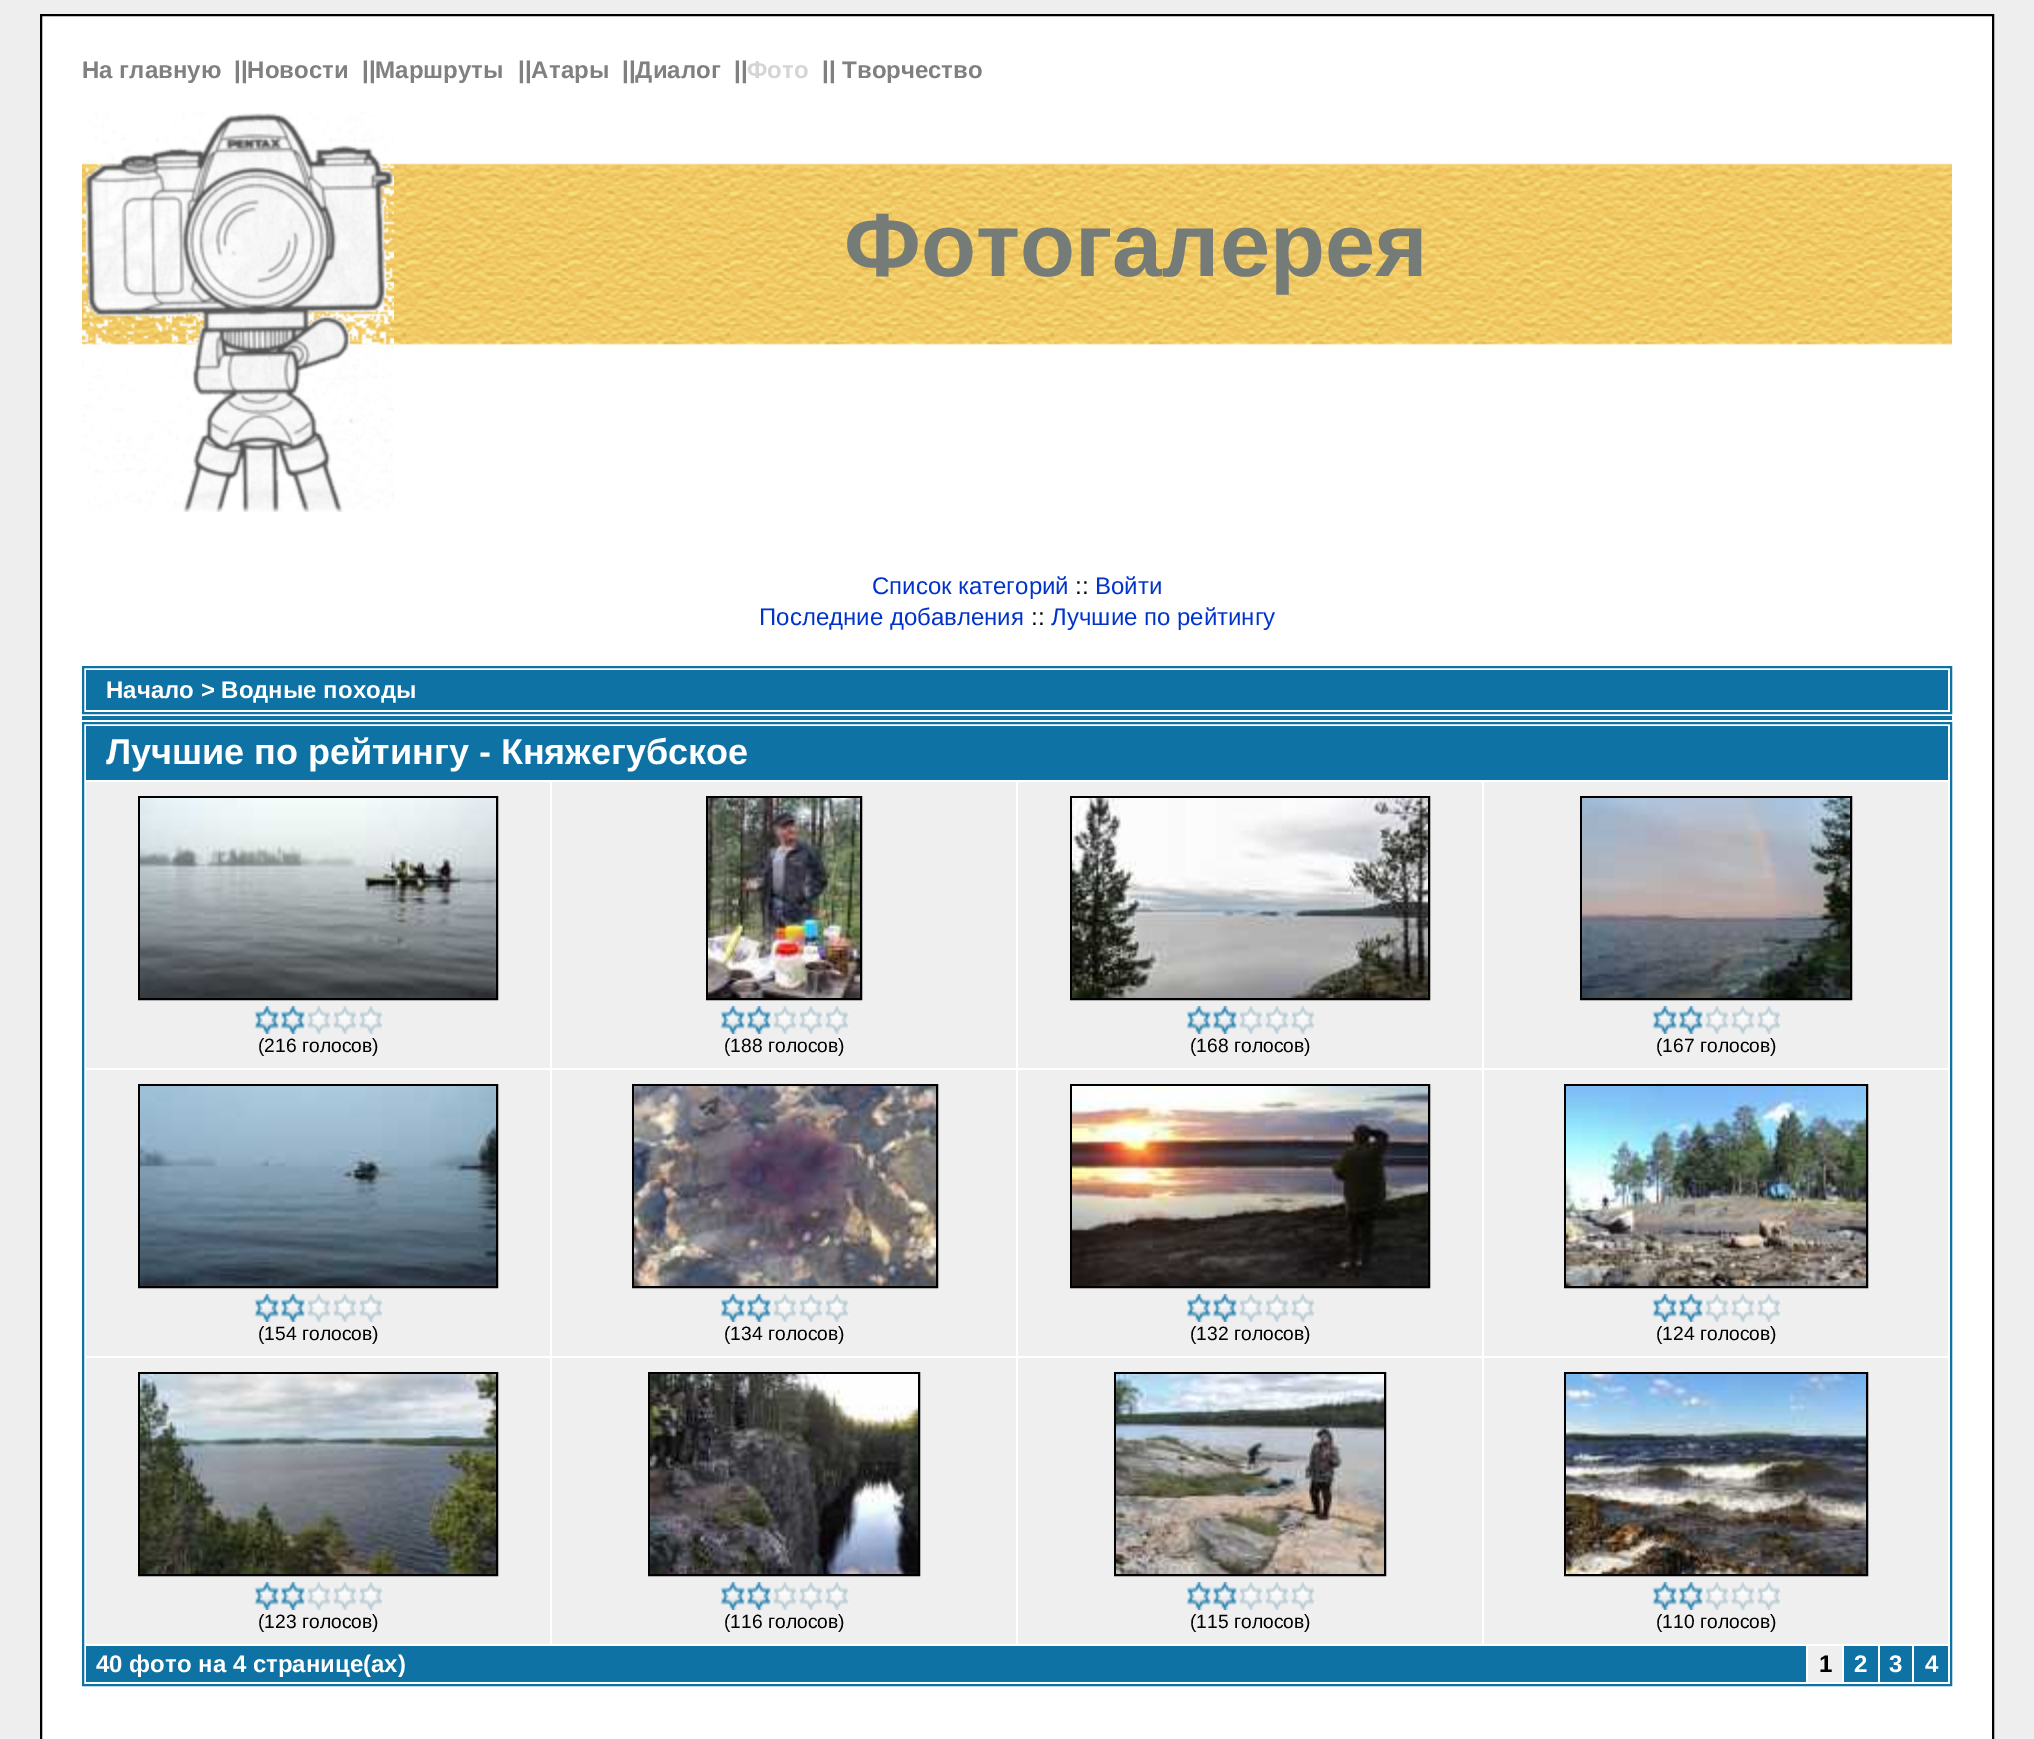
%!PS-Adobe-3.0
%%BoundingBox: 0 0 2034 1739
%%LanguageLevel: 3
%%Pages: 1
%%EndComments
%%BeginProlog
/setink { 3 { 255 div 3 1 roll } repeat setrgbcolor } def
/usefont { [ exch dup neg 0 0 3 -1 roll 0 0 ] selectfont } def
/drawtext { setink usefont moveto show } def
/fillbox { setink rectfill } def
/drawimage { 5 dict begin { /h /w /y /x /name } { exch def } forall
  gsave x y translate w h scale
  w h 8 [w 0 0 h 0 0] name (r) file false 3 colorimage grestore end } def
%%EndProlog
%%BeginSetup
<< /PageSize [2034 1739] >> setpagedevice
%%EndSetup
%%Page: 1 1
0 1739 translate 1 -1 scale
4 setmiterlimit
0 0 2034 1739 238 238 238 fillbox
255 255 255 setink
41 15 moveto 1993 15 lineto 1993 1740 lineto 41 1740 lineto closepath gsave fill grestore
0 0 0 setink
2 setlinewidth
stroke
(На главную) 82 78 /LiberationSans-Bold 24 128 128 128 drawtext
(||Новости) 234 78 /LiberationSans-Bold 24 128 128 128 drawtext
(||Маршруты) 362 78 /LiberationSans-Bold 24 128 128 128 drawtext
(||Атары) 518 78 /LiberationSans-Bold 24 128 128 128 drawtext
(||Диалог) 622 78 /LiberationSans-Bold 24 128 128 128 drawtext
(||) 734 78 /LiberationSans-Bold 24 128 128 128 drawtext
(Фото) 747 78 /LiberationSans-Bold 24 213 213 213 drawtext
(|| Творчество) 822 78 /LiberationSans-Bold 24 128 128 128 drawtext
(assets/img1.rgb) 82 163 1870 182 drawimage
(assets/img2.rgb) 82 112 312 400 drawimage
(Фотогалерея) 844 276 /LiberationSans-Bold 90 117 123 119 drawtext
(Список категорий) 872 594 /LiberationSans-Regular 24 0 51 204 drawtext
(::) 1075 594 /LiberationSans-Regular 24 0 0 0 drawtext
(Войти) 1095 594 /LiberationSans-Regular 24 0 51 204 drawtext
(Последние добавления) 759 625 /LiberationSans-Regular 24 0 51 204 drawtext
(::) 1031 625 /LiberationSans-Regular 24 0 0 0 drawtext
(Лучшие по рейтингу) 1051 625 /LiberationSans-Regular 24 0 51 204 drawtext
14 114 164 setink
83 667 1868 46 rectstroke
86 670 1862 40 14 114 164 fillbox
(Начало > Водные походы) 106 698 /LiberationSans-Bold 24 255 255 255 drawtext
82 716 1870 4 14 114 164 fillbox
83 723 1868 962 rectstroke
86 726 1862 54 14 114 164 fillbox
(Лучшие по рейтингу - Княжегубское) 106 764 /LiberationSans-Bold 36 255 255 255 drawtext
86 782 464 286 239 239 239 fillbox
0 0 0 setink
139 797 358 202 rectstroke
(assets/img3.rgb) 140 798 356 200 drawimage
(assets/img4.rgb) 254 1006 130 28 drawimage
(\(216 голосов\)) 258 1052 /LiberationSans-Regular 19.25 0 0 0 drawtext
552 782 464 286 239 239 239 fillbox
0 0 0 setink
707 797 154 202 rectstroke
(assets/img5.rgb) 708 798 152 200 drawimage
(assets/img4.rgb) 720 1006 130 28 drawimage
(\(188 голосов\)) 724 1052 /LiberationSans-Regular 19.25 0 0 0 drawtext
1018 782 464 286 239 239 239 fillbox
0 0 0 setink
1071 797 358 202 rectstroke
(assets/img6.rgb) 1072 798 356 200 drawimage
(assets/img4.rgb) 1186 1006 130 28 drawimage
(\(168 голосов\)) 1190 1052 /LiberationSans-Regular 19.25 0 0 0 drawtext
1484 782 464 286 239 239 239 fillbox
0 0 0 setink
1581 797 270 202 rectstroke
(assets/img7.rgb) 1582 798 268 200 drawimage
(assets/img4.rgb) 1652 1006 130 28 drawimage
(\(167 голосов\)) 1656 1052 /LiberationSans-Regular 19.25 0 0 0 drawtext
86 1070 464 286 239 239 239 fillbox
0 0 0 setink
139 1085 358 202 rectstroke
(assets/img8.rgb) 140 1086 356 200 drawimage
(assets/img4.rgb) 254 1294 130 28 drawimage
(\(154 голосов\)) 258 1340 /LiberationSans-Regular 19.25 0 0 0 drawtext
552 1070 464 286 239 239 239 fillbox
0 0 0 setink
633 1085 304 202 rectstroke
(assets/img9.rgb) 634 1086 302 200 drawimage
(assets/img4.rgb) 720 1294 130 28 drawimage
(\(134 голосов\)) 724 1340 /LiberationSans-Regular 19.25 0 0 0 drawtext
1018 1070 464 286 239 239 239 fillbox
0 0 0 setink
1071 1085 358 202 rectstroke
(assets/img10.rgb) 1072 1086 356 200 drawimage
(assets/img4.rgb) 1186 1294 130 28 drawimage
(\(132 голосов\)) 1190 1340 /LiberationSans-Regular 19.25 0 0 0 drawtext
1484 1070 464 286 239 239 239 fillbox
0 0 0 setink
1565 1085 302 202 rectstroke
(assets/img11.rgb) 1566 1086 300 200 drawimage
(assets/img4.rgb) 1652 1294 130 28 drawimage
(\(124 голосов\)) 1656 1340 /LiberationSans-Regular 19.25 0 0 0 drawtext
86 1358 464 286 239 239 239 fillbox
0 0 0 setink
139 1373 358 202 rectstroke
(assets/img12.rgb) 140 1374 356 200 drawimage
(assets/img4.rgb) 254 1582 130 28 drawimage
(\(123 голосов\)) 258 1628 /LiberationSans-Regular 19.25 0 0 0 drawtext
552 1358 464 286 239 239 239 fillbox
0 0 0 setink
649 1373 270 202 rectstroke
(assets/img13.rgb) 650 1374 268 200 drawimage
(assets/img4.rgb) 720 1582 130 28 drawimage
(\(116 голосов\)) 724 1628 /LiberationSans-Regular 19.25 0 0 0 drawtext
1018 1358 464 286 239 239 239 fillbox
0 0 0 setink
1115 1373 270 202 rectstroke
(assets/img14.rgb) 1116 1374 268 200 drawimage
(assets/img4.rgb) 1186 1582 130 28 drawimage
(\(115 голосов\)) 1190 1628 /LiberationSans-Regular 19.25 0 0 0 drawtext
1484 1358 464 286 239 239 239 fillbox
0 0 0 setink
1565 1373 302 202 rectstroke
(assets/img15.rgb) 1566 1374 300 200 drawimage
(assets/img4.rgb) 1652 1582 130 28 drawimage
(\(110 голосов\)) 1656 1628 /LiberationSans-Regular 19.25 0 0 0 drawtext
86 1646 1720 36 14 114 164 fillbox
(40 фото на 4 странице\(ах\)) 96 1672 /LiberationSans-Bold 24 255 255 255 drawtext
1808 1646 34 36 239 239 239 fillbox
(1) 1819 1672 /LiberationSans-Bold 24 0 0 0 drawtext
1844 1646 34 36 14 114 164 fillbox
(2) 1854 1672 /LiberationSans-Bold 24 255 255 255 drawtext
1880 1646 32 36 14 114 164 fillbox
(3) 1889 1672 /LiberationSans-Bold 24 255 255 255 drawtext
1914 1646 34 36 14 114 164 fillbox
(4) 1925 1672 /LiberationSans-Bold 24 255 255 255 drawtext
showpage
%%EOF
